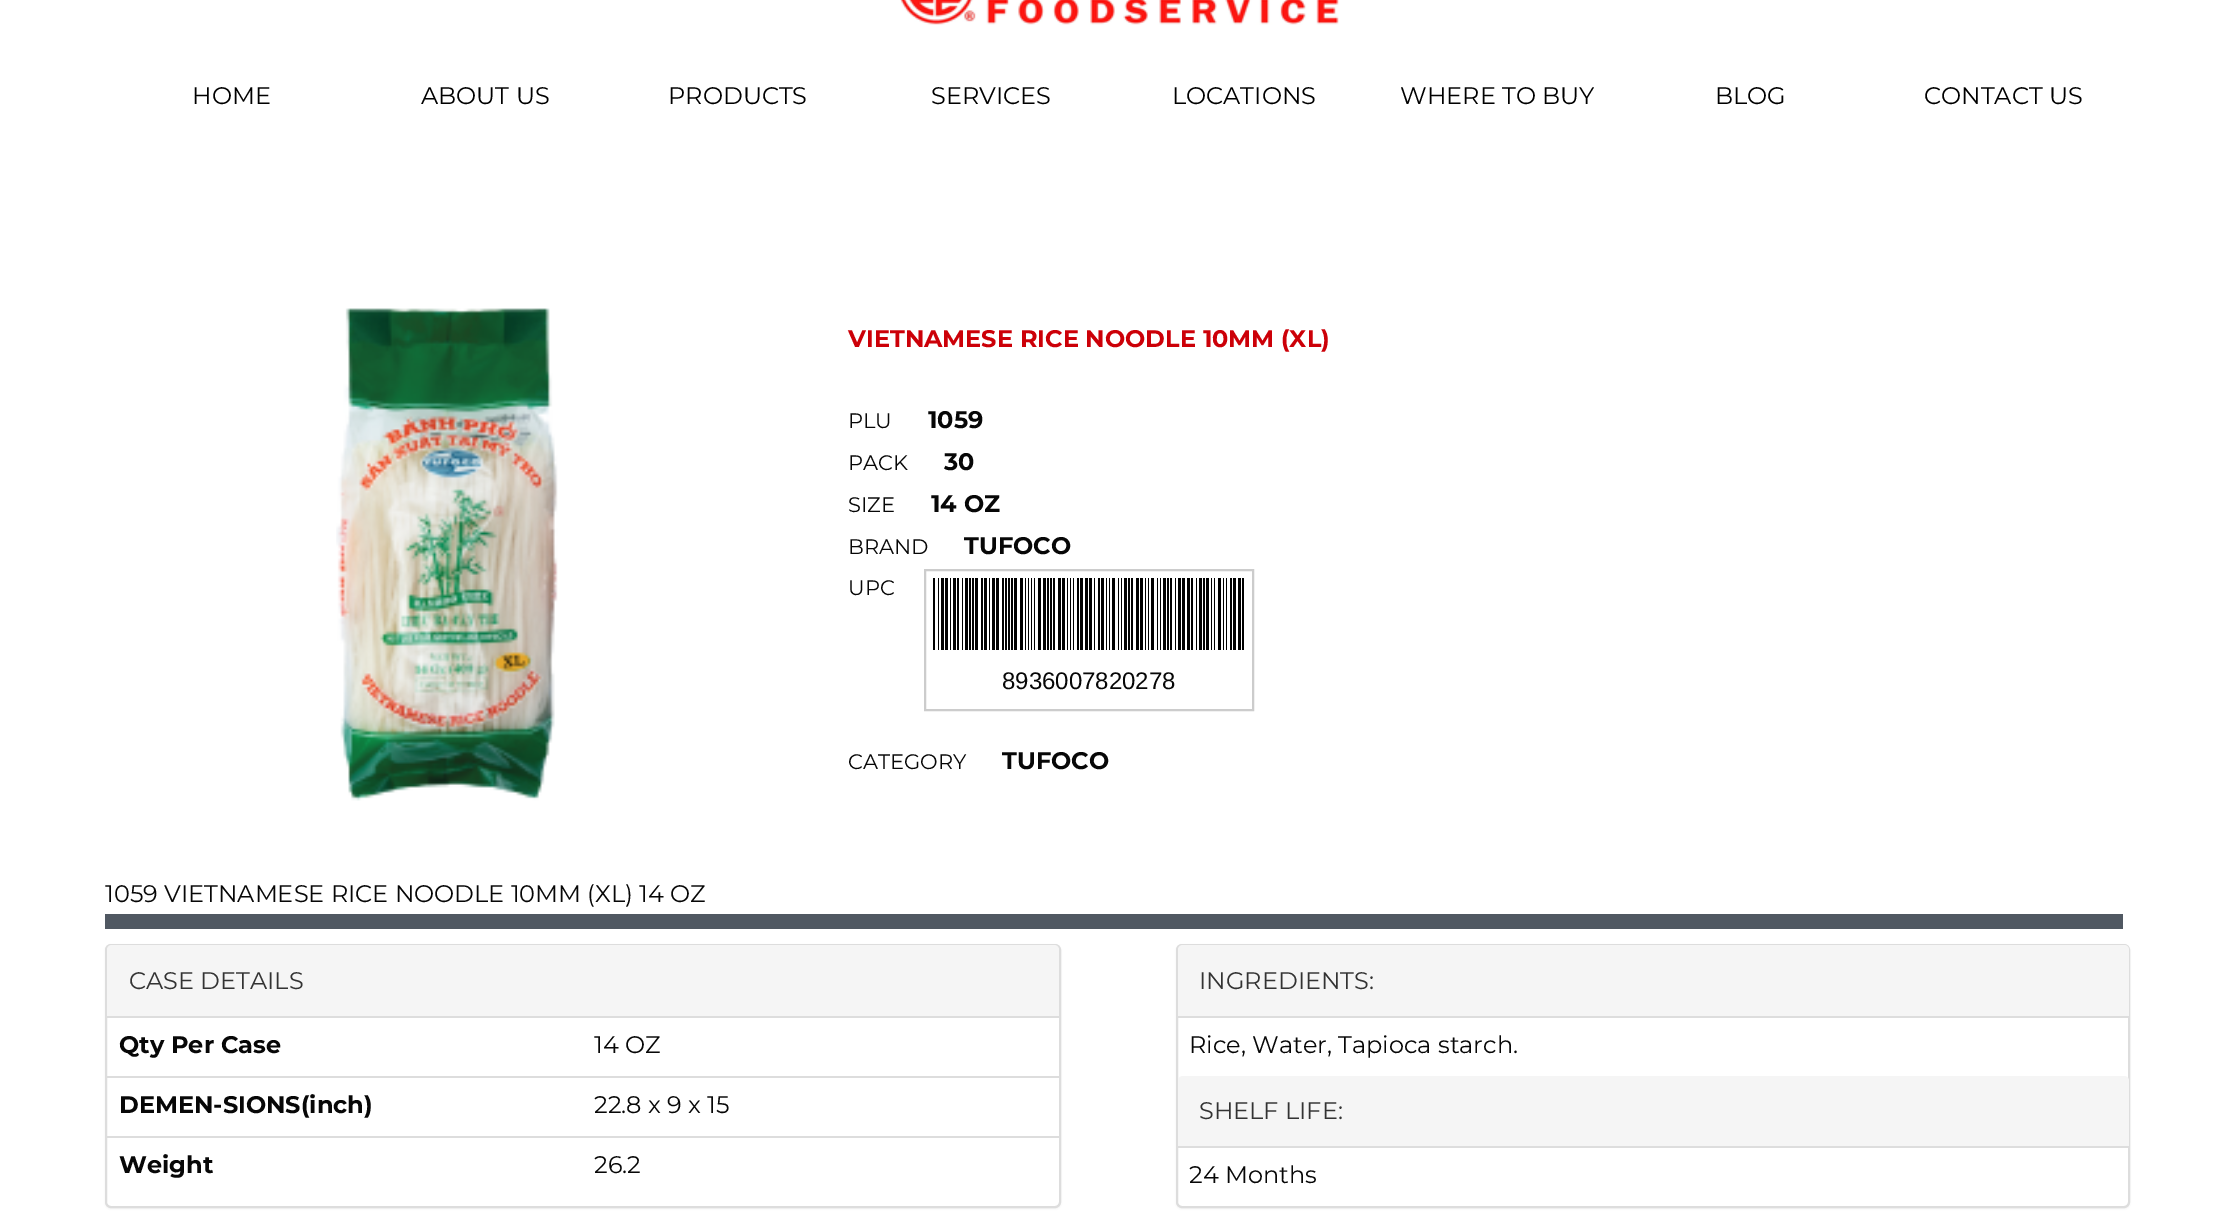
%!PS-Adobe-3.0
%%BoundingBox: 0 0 2235 1229
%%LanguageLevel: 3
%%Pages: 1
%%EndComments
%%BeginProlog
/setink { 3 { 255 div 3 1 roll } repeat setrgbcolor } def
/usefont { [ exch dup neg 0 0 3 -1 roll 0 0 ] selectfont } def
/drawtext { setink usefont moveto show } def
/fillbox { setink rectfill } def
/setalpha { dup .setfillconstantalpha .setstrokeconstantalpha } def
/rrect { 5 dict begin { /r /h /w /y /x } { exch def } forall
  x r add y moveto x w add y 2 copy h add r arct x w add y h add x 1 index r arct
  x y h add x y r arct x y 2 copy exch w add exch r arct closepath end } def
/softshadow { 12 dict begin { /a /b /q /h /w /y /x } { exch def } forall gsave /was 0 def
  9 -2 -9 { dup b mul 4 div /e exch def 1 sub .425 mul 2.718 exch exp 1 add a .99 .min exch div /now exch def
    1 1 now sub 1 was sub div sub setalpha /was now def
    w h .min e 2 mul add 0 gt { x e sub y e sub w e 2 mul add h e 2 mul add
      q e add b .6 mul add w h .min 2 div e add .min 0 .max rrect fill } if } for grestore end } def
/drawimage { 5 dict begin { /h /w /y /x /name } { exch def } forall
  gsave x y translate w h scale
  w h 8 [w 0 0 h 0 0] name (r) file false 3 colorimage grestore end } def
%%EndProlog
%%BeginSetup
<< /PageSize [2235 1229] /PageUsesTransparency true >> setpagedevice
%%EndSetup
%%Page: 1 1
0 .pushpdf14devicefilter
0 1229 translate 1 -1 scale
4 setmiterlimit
0 0 2235 1229 255 255 255 fillbox
(assets/img1.rgb) 900 0 439 25 drawimage
(HOME) 192 104 /Montserrat-Regular 24 0 0 0 drawtext
(ABOUT US) 421 104 /Montserrat-Regular 24 0 0 0 drawtext
(PRODUCTS) 668 104 /Montserrat-Regular 24 0 0 0 drawtext
(SERVICES) 931 104 /Montserrat-Regular 24 0 0 0 drawtext
(LOCATIONS) 1172 104 /Montserrat-Regular 24 0 0 0 drawtext
(WHERE TO BUY) 1400 104 /Montserrat-Regular 24 0 0 0 drawtext
(BLOG) 1715 104 /Montserrat-Regular 24 0 0 0 drawtext
(CONTACT US) 1924 104 /Montserrat-Regular 24 0 0 0 drawtext
(assets/img2.rgb) 336 308 222 493 drawimage
(VIETNAMESE RICE NOODLE 10MM \(XL\)) 848 347 /Montserrat-Bold 24 204 0 8 drawtext
(PLU) 848 428 /Montserrat-Regular 21 7 7 7 drawtext
(1059) 928 428 /Montserrat-Bold 24 7 7 7 drawtext
(PACK) 848 470 /Montserrat-Regular 21 7 7 7 drawtext
(30) 944 470 /Montserrat-Bold 24 7 7 7 drawtext
(SIZE) 848 512 /Montserrat-Regular 21 7 7 7 drawtext
(14 OZ) 931 512 /Montserrat-Bold 24 7 7 7 drawtext
(BRAND) 848 554 /Montserrat-Regular 21 7 7 7 drawtext
(TUFOCO) 964 554 /Montserrat-Bold 24 7 7 7 drawtext
(UPC) 848 595 /Montserrat-Regular 21 7 7 7 drawtext
204 204 204 setink
2 setlinewidth
925 570 328 140 rectstroke
933 578 2 72 0 0 0 fillbox
938 578 1 72 0 0 0 fillbox
941 578 3 72 0 0 0 fillbox
945 578 3 72 0 0 0 fillbox
950 578 1 72 0 0 0 fillbox
953 578 3 72 0 0 0 fillbox
957 578 2 72 0 0 0 fillbox
962 578 1 72 0 0 0 fillbox
965 578 3 72 0 0 0 fillbox
969 578 2 72 0 0 0 fillbox
972 578 2 72 0 0 0 fillbox
975 578 3 72 0 0 0 fillbox
981 578 2 72 0 0 0 fillbox
984 578 3 72 0 0 0 fillbox
989 578 1 72 0 0 0 fillbox
992 578 3 72 0 0 0 fillbox
996 578 3 72 0 0 0 fillbox
1002 578 2 72 0 0 0 fillbox
1005 578 2 72 0 0 0 fillbox
1008 578 2 72 0 0 0 fillbox
1011 578 2 72 0 0 0 fillbox
1014 578 3 72 0 0 0 fillbox
1020 578 3 72 0 0 0 fillbox
1025 578 1 72 0 0 0 fillbox
1028 578 1 72 0 0 0 fillbox
1031 578 1 72 0 0 0 fillbox
1034 578 1 72 0 0 0 fillbox
1038 578 3 72 0 0 0 fillbox
1043 578 3 72 0 0 0 fillbox
1047 578 2 72 0 0 0 fillbox
1050 578 2 72 0 0 0 fillbox
1053 578 2 72 0 0 0 fillbox
1058 578 3 72 0 0 0 fillbox
1062 578 3 72 0 0 0 fillbox
1067 578 1 72 0 0 0 fillbox
1070 578 1 72 0 0 0 fillbox
1073 578 1 72 0 0 0 fillbox
1077 578 2 72 0 0 0 fillbox
1080 578 3 72 0 0 0 fillbox
1085 578 3 72 0 0 0 fillbox
1089 578 3 72 0 0 0 fillbox
1094 578 1 72 0 0 0 fillbox
1098 578 2 72 0 0 0 fillbox
1101 578 3 72 0 0 0 fillbox
1106 578 1 72 0 0 0 fillbox
1109 578 1 72 0 0 0 fillbox
1112 578 3 72 0 0 0 fillbox
1118 578 1 72 0 0 0 fillbox
1121 578 1 72 0 0 0 fillbox
1124 578 3 72 0 0 0 fillbox
1128 578 2 72 0 0 0 fillbox
1131 578 2 72 0 0 0 fillbox
1136 578 3 72 0 0 0 fillbox
1140 578 3 72 0 0 0 fillbox
1145 578 1 72 0 0 0 fillbox
1148 578 1 72 0 0 0 fillbox
1151 578 3 72 0 0 0 fillbox
1157 578 1 72 0 0 0 fillbox
1160 578 1 72 0 0 0 fillbox
1163 578 3 72 0 0 0 fillbox
1167 578 2 72 0 0 0 fillbox
1170 578 2 72 0 0 0 fillbox
1175 578 1 72 0 0 0 fillbox
1178 578 3 72 0 0 0 fillbox
1182 578 3 72 0 0 0 fillbox
1187 578 3 72 0 0 0 fillbox
1191 578 2 72 0 0 0 fillbox
1196 578 1 72 0 0 0 fillbox
1199 578 3 72 0 0 0 fillbox
1203 578 2 72 0 0 0 fillbox
1206 578 3 72 0 0 0 fillbox
1211 578 1 72 0 0 0 fillbox
1214 578 1 72 0 0 0 fillbox
1218 578 3 72 0 0 0 fillbox
1223 578 1 72 0 0 0 fillbox
1226 578 1 72 0 0 0 fillbox
1230 578 2 72 0 0 0 fillbox
1233 578 3 72 0 0 0 fillbox
1238 578 3 72 0 0 0 fillbox
1242 578 2 72 0 0 0 fillbox
(8936007820278) 1002 689 /LiberationSans-Regular 24 7 7 7 drawtext
(CATEGORY) 848 769 /Montserrat-Regular 21 7 7 7 drawtext
(TUFOCO) 1002 769 /Montserrat-Bold 24 7 7 7 drawtext
105 914 2018 15 80 88 98 fillbox
(1059 VIETNAMESE RICE NOODLE 10MM \(XL\) 14 OZ) 105 902 /Montserrat-Regular 24 7 7 7 drawtext
0 0 0 setink
105 945 956 264 6 1 0.05 softshadow
255 255 255 setink
106 945 954 262 5 rrect gsave fill grestore
221 221 221 setink
stroke
245 245 245 setink
112 945 moveto 1054 945 lineto 1057 945 1059 947 1059 950 curveto 1059 1017 lineto 107 1017 lineto 107 950 lineto 107 947 109 945 112 945 curveto closepath fill
107 1016 952 2 221 221 221 fillbox
(CASE DETAILS) 129 989 /Montserrat-Regular 24 51 51 51 drawtext
(Qty Per Case) 119 1053 /Montserrat-Bold 24 7 7 7 drawtext
(14 OZ) 594 1053 /Montserrat-Regular 24 7 7 7 drawtext
(DEMEN-SIONS\(inch\)) 119 1113 /Montserrat-Bold 24 7 7 7 drawtext
107 1076 952 2 221 221 221 fillbox
(22.8 x 9 x 15) 594 1113 /Montserrat-Regular 24 7 7 7 drawtext
(Weight) 119 1173 /Montserrat-Bold 24 7 7 7 drawtext
107 1136 952 2 221 221 221 fillbox
(26.2) 594 1173 /Montserrat-Regular 24 7 7 7 drawtext
0 0 0 setink
1176 945 954 264 6 1 0.05 softshadow
255 255 255 setink
1177 945 952 262 5 rrect gsave fill grestore
221 221 221 setink
stroke
245 245 245 setink
1183 945 moveto 2124 945 lineto 2127 945 2129 947 2129 950 curveto 2129 1017 lineto 1178 1017 lineto 1178 950 lineto 1178 947 1180 945 1183 945 curveto closepath fill
1178 1016 951 2 221 221 221 fillbox
(INGREDIENTS:) 1199 989 /Montserrat-Regular 24 51 51 51 drawtext
(Rice, Water, Tapioca starch.) 1189 1053 /Montserrat-Regular 24 7 7 7 drawtext
245 245 245 setink
1183 1076 moveto 2124 1076 lineto 2127 1076 2129 1078 2129 1081 curveto 2129 1148 lineto 1178 1148 lineto 1178 1081 lineto 1178 1078 1180 1076 1183 1076 curveto closepath fill
1178 1146 951 2 221 221 221 fillbox
(SHELF LIFE:) 1199 1119 /Montserrat-Regular 24 51 51 51 drawtext
(24 Months) 1189 1183 /Montserrat-Regular 24 7 7 7 drawtext
.poppdf14devicefilter showpage
%%EOF
